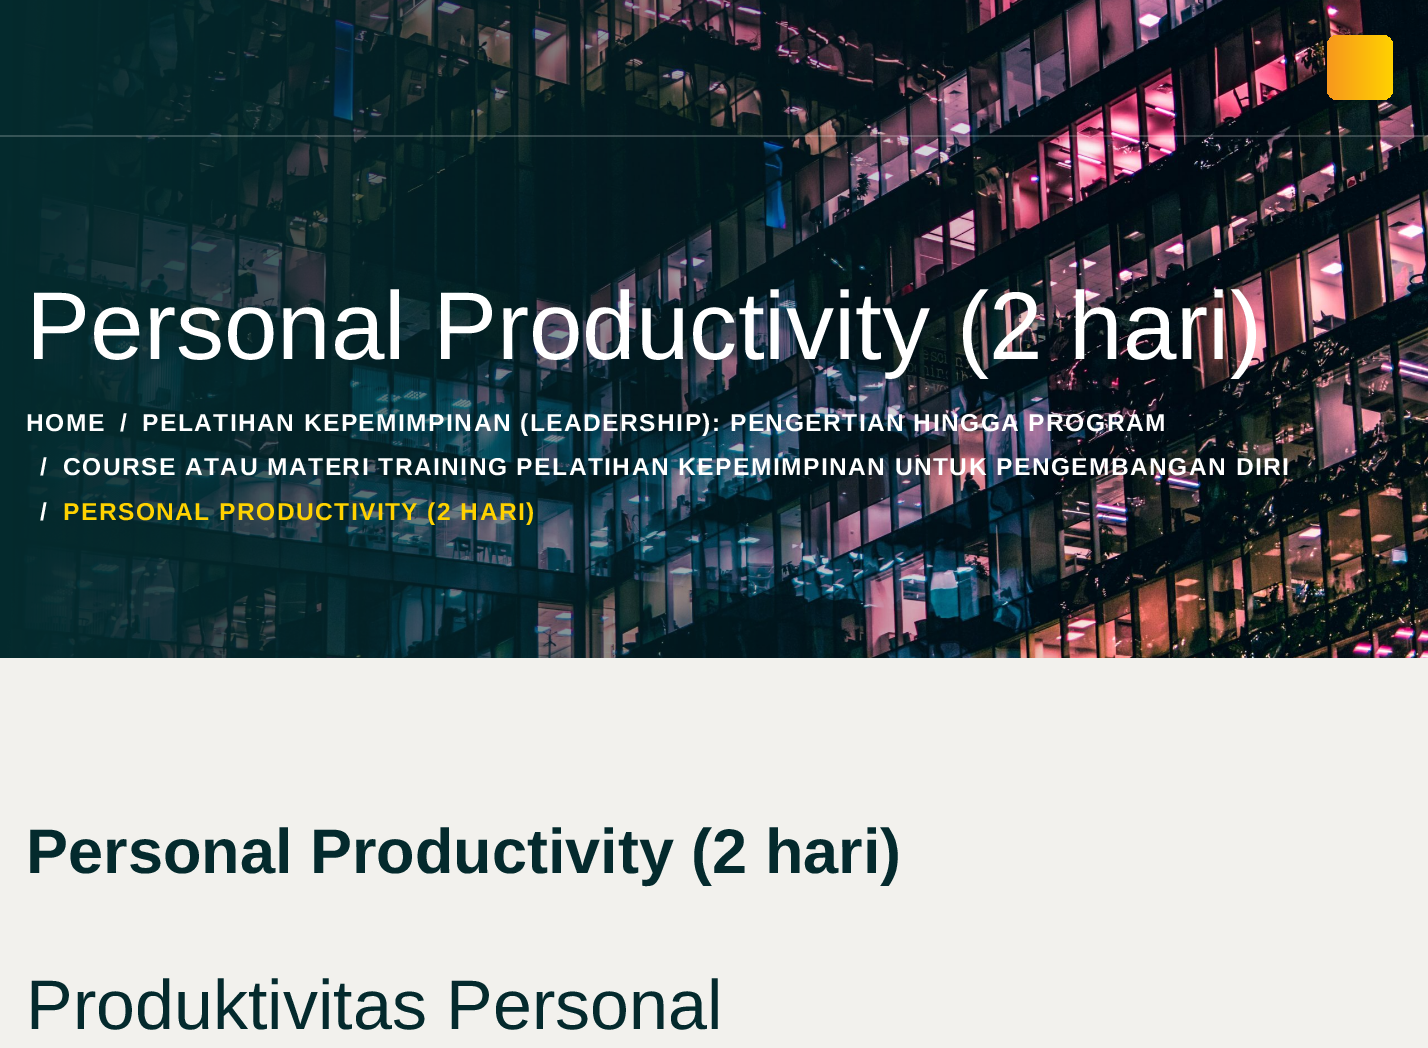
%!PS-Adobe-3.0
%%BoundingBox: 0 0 1428 1048
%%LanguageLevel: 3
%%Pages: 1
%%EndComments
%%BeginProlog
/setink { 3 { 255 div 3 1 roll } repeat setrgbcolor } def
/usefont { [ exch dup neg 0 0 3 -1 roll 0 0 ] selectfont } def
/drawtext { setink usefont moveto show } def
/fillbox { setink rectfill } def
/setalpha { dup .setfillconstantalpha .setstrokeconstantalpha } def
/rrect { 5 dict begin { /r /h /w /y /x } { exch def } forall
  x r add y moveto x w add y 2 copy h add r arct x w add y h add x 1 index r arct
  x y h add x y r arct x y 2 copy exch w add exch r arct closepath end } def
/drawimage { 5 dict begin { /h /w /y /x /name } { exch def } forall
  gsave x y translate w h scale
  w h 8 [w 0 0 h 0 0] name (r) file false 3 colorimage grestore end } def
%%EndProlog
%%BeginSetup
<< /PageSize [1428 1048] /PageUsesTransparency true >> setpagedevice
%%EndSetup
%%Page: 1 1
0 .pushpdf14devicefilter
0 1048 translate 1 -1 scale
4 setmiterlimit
0 0 1428 1048 242 241 237 fillbox
(assets/img1.rgb) 0 0 1428 658 drawimage
0.2 setalpha
0 135 1428 2 255 255 255 fillbox
1 setalpha
gsave 1327 35 66 65 11 rrect clip newpath
<< /ShadingType 2 /ColorSpace /DeviceRGB /Coords [1327 67 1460 67] /Extend [true true] /Function << /FunctionType 3 /Domain [0 1] /Functions [<< /FunctionType 2 /Domain [0 1] /C0 [0.969 0.592 0.118] /C1 [1 0.824 0] /N 1 >> << /FunctionType 2 /Domain [0 1] /C0 [1 0.824 0] /C1 [0.969 0.592 0.118] /N 1 >>] /Bounds [0.5] /Encode [0 1 0 1] >> >> shfill grestore
(Personal Productivity \(2 hari\)) 26 359 /LiberationSans-Regular 96.25 255 255 255 drawtext
/LiberationSans-Bold 24.5 usefont
26 431 moveto 1.47 0 (HOME) ashow
120 431 moveto 1.47 0 (/) ashow
142 431 moveto 1.47 0 (PELATIHAN KEPEMIMPINAN \(LEADERSHIP\): PENGERTIAN HINGGA PROGRAM) ashow
40 475 moveto 1.47 0 (/) ashow
63 475 moveto 1.47 0 (COURSE ATAU MATERI TRAINING PELATIHAN KEPEMIMPINAN UNTUK PENGEMBANGAN DIRI) ashow
40 520 moveto 1.47 0 (/) ashow
255 210 0 setink
63 520 moveto 1.47 0 (PERSONAL PRODUCTIVITY \(2 HARI\)) ashow
(Personal Productivity \(2 hari\)) 26 873 /LiberationSans-Bold 63 4 42 45 drawtext
(Produktivitas Personal) 26 1029 /LiberationSans-Regular 70 4 42 45 drawtext
.poppdf14devicefilter showpage
%%EOF
